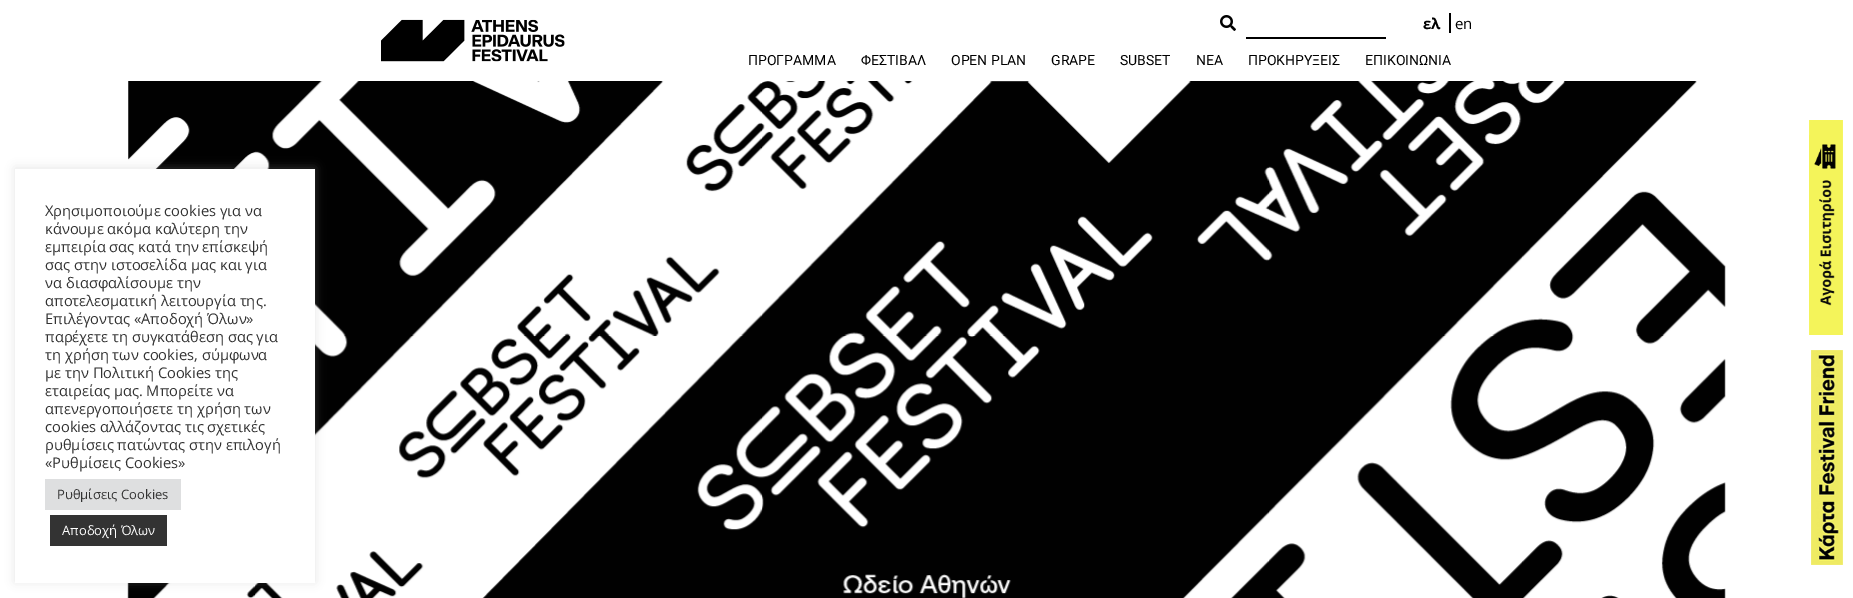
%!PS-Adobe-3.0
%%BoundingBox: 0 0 1853 598
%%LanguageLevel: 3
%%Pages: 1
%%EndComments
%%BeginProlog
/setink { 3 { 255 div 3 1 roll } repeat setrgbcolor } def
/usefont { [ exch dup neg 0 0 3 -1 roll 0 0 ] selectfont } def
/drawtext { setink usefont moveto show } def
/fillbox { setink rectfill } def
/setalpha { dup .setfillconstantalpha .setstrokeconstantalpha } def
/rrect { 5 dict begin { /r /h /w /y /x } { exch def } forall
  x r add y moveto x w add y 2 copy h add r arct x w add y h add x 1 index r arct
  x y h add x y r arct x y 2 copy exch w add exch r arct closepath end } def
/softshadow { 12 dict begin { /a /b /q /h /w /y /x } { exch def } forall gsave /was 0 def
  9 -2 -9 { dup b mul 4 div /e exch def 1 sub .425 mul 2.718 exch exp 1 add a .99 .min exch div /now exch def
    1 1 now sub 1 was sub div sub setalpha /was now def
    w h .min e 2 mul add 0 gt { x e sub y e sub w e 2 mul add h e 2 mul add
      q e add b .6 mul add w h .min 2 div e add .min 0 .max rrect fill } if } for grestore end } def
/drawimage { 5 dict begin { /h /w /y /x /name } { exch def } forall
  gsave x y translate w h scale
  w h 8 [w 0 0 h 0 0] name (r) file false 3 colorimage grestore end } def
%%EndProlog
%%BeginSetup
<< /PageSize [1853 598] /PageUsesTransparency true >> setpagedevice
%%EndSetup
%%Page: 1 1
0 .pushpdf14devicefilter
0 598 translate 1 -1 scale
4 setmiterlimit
0 0 1853 598 255 255 255 fillbox
(assets/img1.rgb) 381 19 184 43 drawimage
(assets/img2.rgb) 1220 15 16 16 drawimage
1246 37 140 2 0 0 0 fillbox
(ελ) 1423 29 /OpenSans-Bold 15 0 0 0 drawtext
1449 13 2 20 0 0 0 fillbox
(en) 1455 29 /OpenSans-Regular 15 0 0 0 drawtext
(ΠΡΟΓΡΑΜΜΑ) 748 65 /Roboto-Regular 14 0 0 0 drawtext
(ΦΕΣΤΙΒΑΛ) 861 65 /Roboto-Regular 14 0 0 0 drawtext
(OPEN PLAN) 951 65 /Roboto-Regular 14 0 0 0 drawtext
(GRAPE) 1051 65 /Roboto-Regular 14 0 0 0 drawtext
(SUBSET) 1120 65 /Roboto-Regular 14 0 0 0 drawtext
(ΝΕΑ) 1196 65 /Roboto-Regular 14 0 0 0 drawtext
(ΠΡΟΚΗΡΥΞΕΙΣ) 1248 65 /Roboto-Regular 14 0 0 0 drawtext
(ΕΠΙΚΟΙΝΩΝΙΑ) 1365 65 /Roboto-Regular 14 0 0 0 drawtext
(assets/img3.rgb) 127 81 1599 517 drawimage
(assets/img4.rgb) 1809 120 34 215 drawimage
(assets/img5.rgb) 1811 350 32 215 drawimage
172 171 171 setink
15 168 300 414 0 5 0.3 softshadow
15 169 300 414 255 255 255 fillbox
(Χρησιμοποιούμε cookies για να) 45 216 /OpenSans-Regular 14.7 51 51 51 drawtext
(κάνουμε ακόμα καλύτερη την) 45 234 /OpenSans-Regular 14.7 51 51 51 drawtext
(εμπειρία σας κατά την επίσκεψή) 45 252 /OpenSans-Regular 14.7 51 51 51 drawtext
(σας στην ιστοσελίδα μας και για) 45 270 /OpenSans-Regular 14.7 51 51 51 drawtext
(να διασφαλίσουμε την) 45 288 /OpenSans-Regular 14.7 51 51 51 drawtext
(αποτελεσματική λειτουργία της.) 45 306 /OpenSans-Regular 14.7 51 51 51 drawtext
(Επιλέγοντας «Αποδοχή Όλων») 45 324 /OpenSans-Regular 14.7 51 51 51 drawtext
(παρέχετε τη συγκατάθεση σας για) 45 342 /OpenSans-Regular 14.7 51 51 51 drawtext
(τη χρήση των cookies, σύμφωνα) 45 360 /OpenSans-Regular 14.7 51 51 51 drawtext
(με την Πολιτική Cookies της) 45 378 /OpenSans-Regular 14.7 51 51 51 drawtext
(εταιρείας μας. Μπορείτε να) 45 396 /OpenSans-Regular 14.7 51 51 51 drawtext
(απενεργοποιήσετε τη χρήση των) 45 414 /OpenSans-Regular 14.7 51 51 51 drawtext
(cookies αλλάζοντας τις σχετικές) 45 432 /OpenSans-Regular 14.7 51 51 51 drawtext
(ρυθμίσεις πατώντας στην επιλογή) 45 450 /OpenSans-Regular 14.7 51 51 51 drawtext
(«Ρυθμίσεις Cookies») 45 468 /OpenSans-Regular 14.7 51 51 51 drawtext
45 479 136 31 222 223 224 fillbox
(Ρυθμίσεις Cookies) 57 499 /OpenSans-Regular 13 51 51 51 drawtext
50 515 117 31 51 51 51 fillbox
(Αποδοχή Όλων) 62 535 /OpenSans-Regular 13 255 255 255 drawtext
.poppdf14devicefilter showpage
%%EOF
